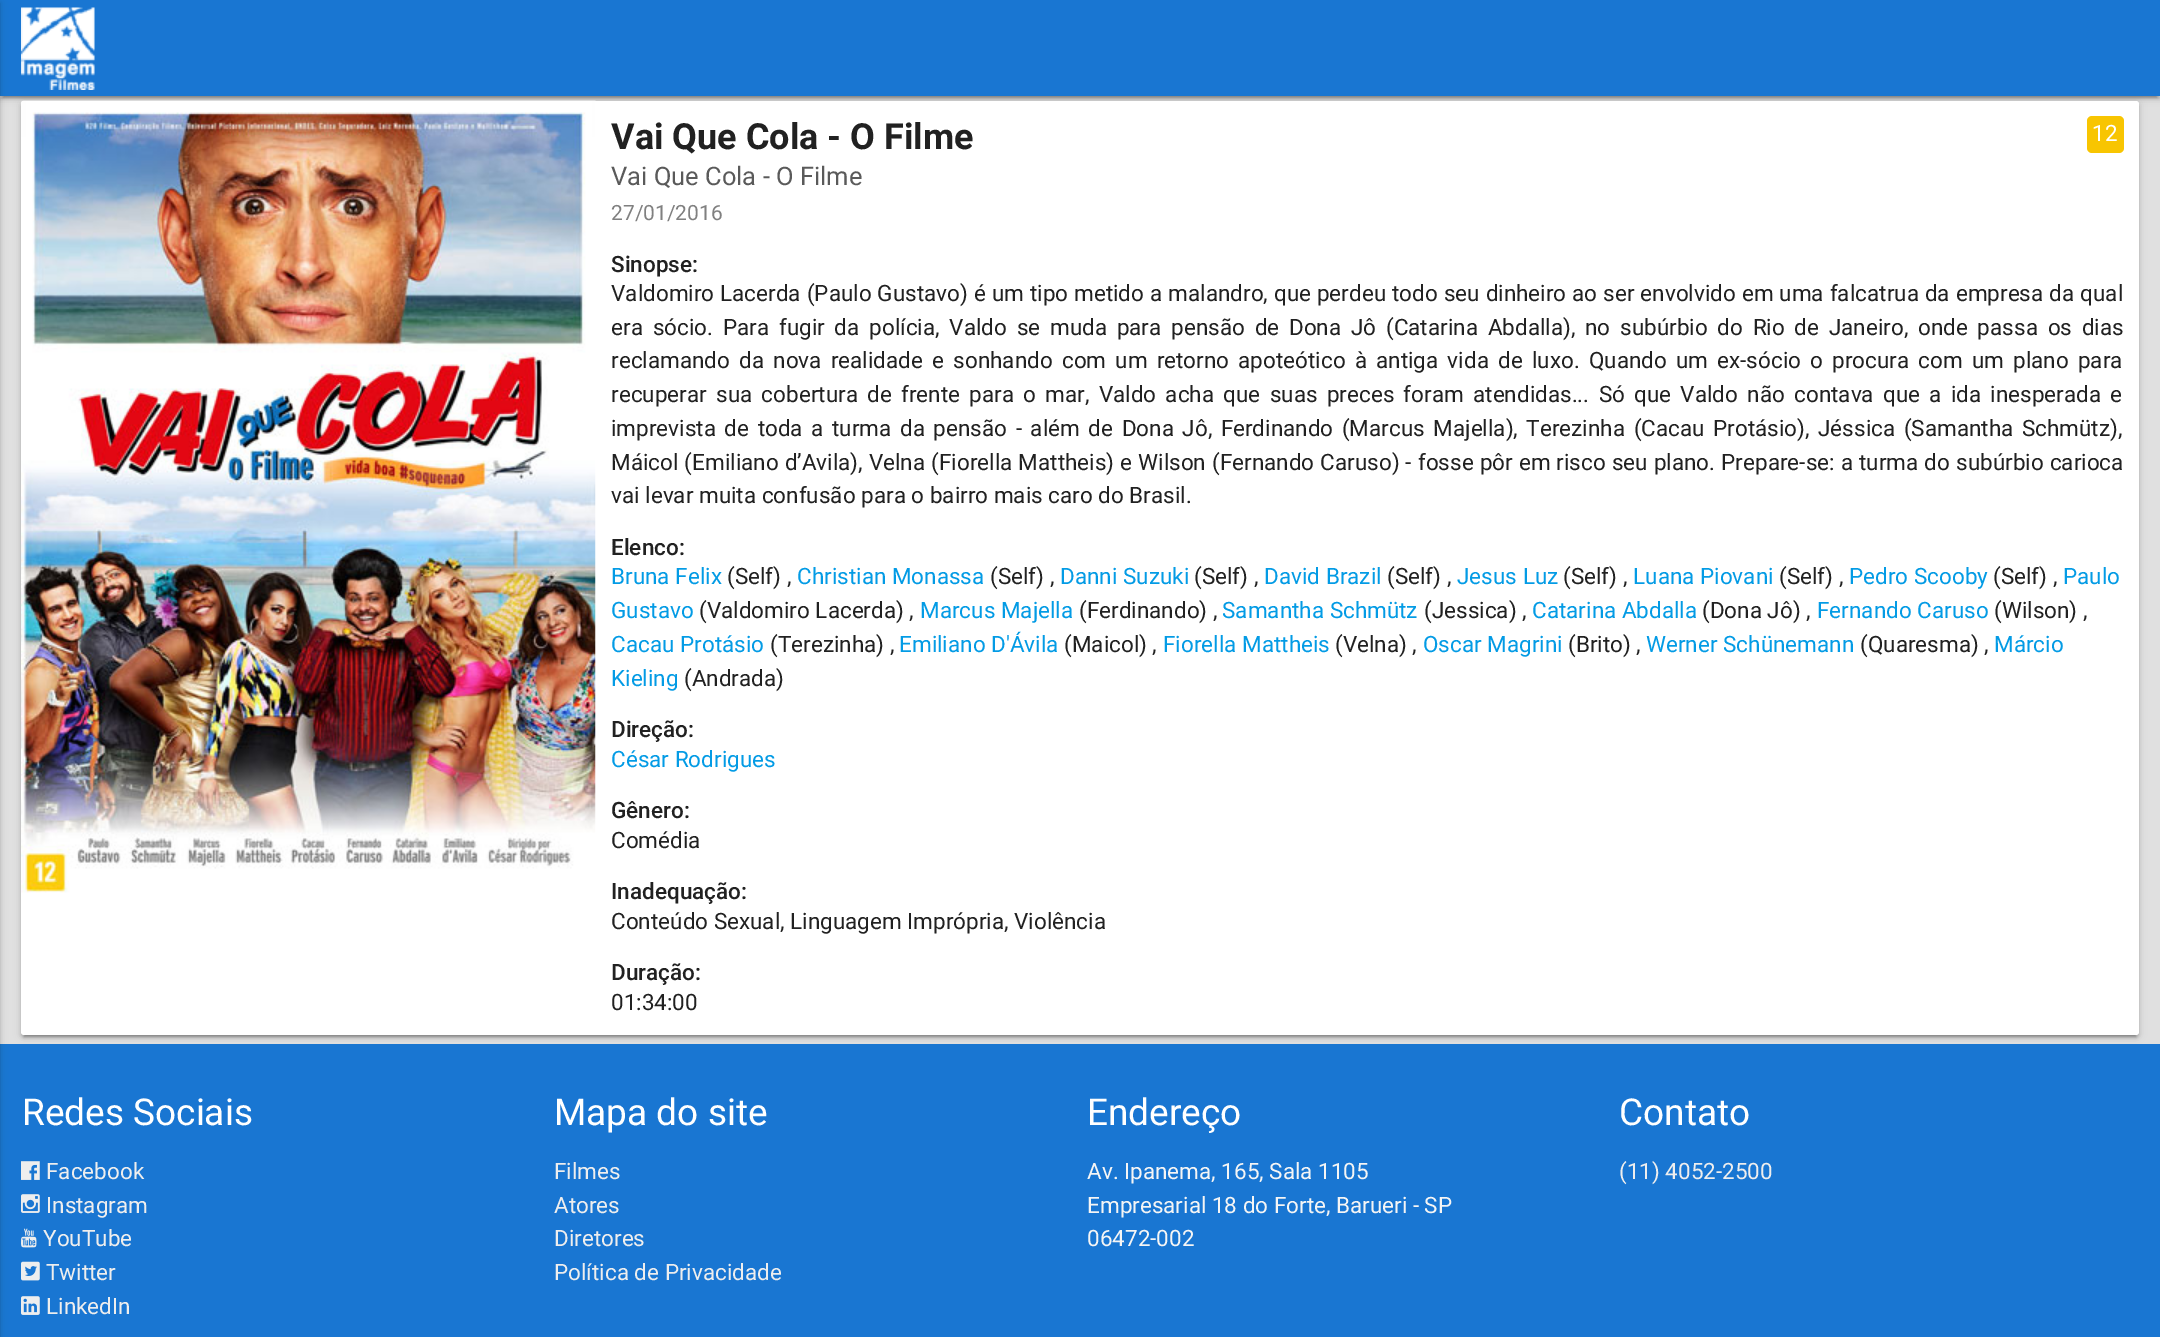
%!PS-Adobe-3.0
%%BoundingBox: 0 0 2160 1337
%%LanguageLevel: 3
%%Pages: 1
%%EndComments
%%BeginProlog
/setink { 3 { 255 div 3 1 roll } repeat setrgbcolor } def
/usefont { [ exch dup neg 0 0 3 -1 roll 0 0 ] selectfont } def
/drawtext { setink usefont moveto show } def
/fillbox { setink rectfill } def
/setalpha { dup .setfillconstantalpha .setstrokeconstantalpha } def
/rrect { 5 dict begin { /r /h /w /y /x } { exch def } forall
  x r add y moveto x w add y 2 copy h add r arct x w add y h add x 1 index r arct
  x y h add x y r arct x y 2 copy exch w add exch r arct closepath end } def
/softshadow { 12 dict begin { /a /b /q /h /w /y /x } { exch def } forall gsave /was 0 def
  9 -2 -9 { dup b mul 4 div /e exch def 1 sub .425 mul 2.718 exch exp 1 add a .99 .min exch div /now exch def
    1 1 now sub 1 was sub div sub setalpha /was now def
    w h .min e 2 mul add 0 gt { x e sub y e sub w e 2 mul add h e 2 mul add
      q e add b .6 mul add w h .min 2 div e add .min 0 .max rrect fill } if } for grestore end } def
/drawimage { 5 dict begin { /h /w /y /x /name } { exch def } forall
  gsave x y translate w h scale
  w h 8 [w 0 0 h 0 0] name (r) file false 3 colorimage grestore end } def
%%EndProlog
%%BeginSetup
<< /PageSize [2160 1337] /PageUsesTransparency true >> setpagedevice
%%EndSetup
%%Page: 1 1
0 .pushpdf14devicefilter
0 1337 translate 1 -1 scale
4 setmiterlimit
0 0 2160 1337 224 224 224 fillbox
0 0 0 setink
3 8 2154 90 0 1 0.2 softshadow
0 2 2160 96 0 4 0.12 softshadow
0 3 2160 96 0 1.5 0.14 softshadow
0 0 2160 96 25 118 210 fillbox
0 1044 2160 293 25 118 210 fillbox
0 0 0 setink
-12 2 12 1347 0 4 0.12 softshadow
-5 3 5 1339 0 1.5 0.14 softshadow
(assets/img1.rgb) 21 7 74 83 drawimage
24 108 2112 929 0 1 0.2 softshadow
21 102 2118 935 3 4 0.12 softshadow
21 104 2118 934 3 1.5 0.14 softshadow
255 255 255 setink
21 101 2118 934 3 rrect fill
(assets/img2.rgb) 21 100 575 793 drawimage
(Vai Que Cola - O Filme) 611 149 /Roboto-Bold 36 33 33 33 drawtext
248 197 1 setink
2087 116 37 37 5 rrect fill
(12) 2092 141 /Roboto-Regular 22.5 255 255 255 drawtext
(Vai Que Cola - O Filme) 611 185 /Roboto-Regular 25.5 90 90 90 drawtext
(27/01/2016) 611 220 /Roboto-Regular 21 128 128 128 drawtext
(Sinopse:) 611 272 /Roboto-Medium 22.5 33 33 33 drawtext
/Roboto-Regular 22.5 usefont
611 301 moveto 0.4 0 32 (Valdomiro Lacerda \(Paulo Gustavo\) é um tipo metido a malandro, que perdeu todo seu dinheiro ao ser envolvido em uma falcatrua da empresa da qual) widthshow
611 335 moveto 4.2 0 32 (era sócio. Para fugir da polícia, Valdo se muda para pensão de Dona Jô \(Catarina Abdalla\), no subúrbio do Rio de Janeiro, onde passa os dias) widthshow
611 368 moveto 3.6 0 32 (reclamando da nova realidade e sonhando com um retorno apoteótico à antiga vida de luxo. Quando um ex-sócio o procura com um plano para) widthshow
611 402 moveto 3.7 0 32 (recuperar sua cobertura de frente para o mar, Valdo acha que suas preces foram atendidas... Só que Valdo não contava que a ida inesperada e) widthshow
611 436 moveto 3 0 32 (imprevista de toda a turma da pensão - além de Dona Jô, Ferdinando \(Marcus Majella\), Terezinha \(Cacau Protásio\), Jéssica \(Samantha Schmütz\),) widthshow
611 470 moveto 0.5 0 32 (Máicol \(Emiliano d’Avila\), Velna \(Fiorella Mattheis\) e Wilson \(Fernando Caruso\) - fosse pôr em risco seu plano. Prepare-se: a turma do subúrbio carioca) widthshow
(vai levar muita confusão para o bairro mais caro do Brasil.) 611 503 /Roboto-Regular 22.5 33 33 33 drawtext
(Elenco:) 611 555 /Roboto-Medium 22.5 33 33 33 drawtext
(Bruna Felix) 611 584 /Roboto-Regular 22.5 3 155 229 drawtext
(\(Self\) ,) 727 584 /Roboto-Regular 22.5 33 33 33 drawtext
(Christian Monassa) 797 584 /Roboto-Regular 22.5 3 155 229 drawtext
(\(Self\) ,) 990 584 /Roboto-Regular 22.5 33 33 33 drawtext
(Danni Suzuki) 1060 584 /Roboto-Regular 22.5 3 155 229 drawtext
(\(Self\) ,) 1194 584 /Roboto-Regular 22.5 33 33 33 drawtext
(David Brazil) 1264 584 /Roboto-Regular 22.5 3 155 229 drawtext
(\(Self\) ,) 1387 584 /Roboto-Regular 22.5 33 33 33 drawtext
(Jesus Luz) 1457 584 /Roboto-Regular 22.5 3 155 229 drawtext
(\(Self\) ,) 1563 584 /Roboto-Regular 22.5 33 33 33 drawtext
(Luana Piovani) 1633 584 /Roboto-Regular 22.5 3 155 229 drawtext
(\(Self\) ,) 1779 584 /Roboto-Regular 22.5 33 33 33 drawtext
(Pedro Scooby) 1849 584 /Roboto-Regular 22.5 3 155 229 drawtext
(\(Self\) ,) 1993 584 /Roboto-Regular 22.5 33 33 33 drawtext
(Paulo) 2063 584 /Roboto-Regular 22.5 3 155 229 drawtext
(Gustavo) 611 618 /Roboto-Regular 22.5 3 155 229 drawtext
(\(Valdomiro Lacerda\) ,) 699 618 /Roboto-Regular 22.5 33 33 33 drawtext
(Marcus Majella) 920 618 /Roboto-Regular 22.5 3 155 229 drawtext
(\(Ferdinando\) ,) 1079 618 /Roboto-Regular 22.5 33 33 33 drawtext
(Samantha Schmütz) 1222 618 /Roboto-Regular 22.5 3 155 229 drawtext
(\(Jessica\) ,) 1424 618 /Roboto-Regular 22.5 33 33 33 drawtext
(Catarina Abdalla) 1532 618 /Roboto-Regular 22.5 3 155 229 drawtext
(\(Dona Jô\) ,) 1702 618 /Roboto-Regular 22.5 33 33 33 drawtext
(Fernando Caruso) 1817 618 /Roboto-Regular 22.5 3 155 229 drawtext
(\(Wilson\) ,) 1994 618 /Roboto-Regular 22.5 33 33 33 drawtext
(Cacau Protásio) 611 652 /Roboto-Regular 22.5 3 155 229 drawtext
(\(Terezinha\) ,) 770 652 /Roboto-Regular 22.5 33 33 33 drawtext
(Emiliano D'Ávila) 899 652 /Roboto-Regular 22.5 3 155 229 drawtext
(\(Maicol\) ,) 1064 652 /Roboto-Regular 22.5 33 33 33 drawtext
(Fiorella Mattheis) 1163 652 /Roboto-Regular 22.5 3 155 229 drawtext
(\(Velna\) ,) 1335 652 /Roboto-Regular 22.5 33 33 33 drawtext
(Oscar Magrini) 1423 652 /Roboto-Regular 22.5 3 155 229 drawtext
(\(Brito\) ,) 1568 652 /Roboto-Regular 22.5 33 33 33 drawtext
(Werner Schünemann) 1646 652 /Roboto-Regular 22.5 3 155 229 drawtext
(\(Quaresma\) ,) 1860 652 /Roboto-Regular 22.5 33 33 33 drawtext
(Márcio) 1994 652 /Roboto-Regular 22.5 3 155 229 drawtext
(Kieling) 611 686 /Roboto-Regular 22.5 3 155 229 drawtext
(\(Andrada\)) 684 686 /Roboto-Regular 22.5 33 33 33 drawtext
(Direção:) 611 737 /Roboto-Medium 22.5 33 33 33 drawtext
(César Rodrigues) 611 767 /Roboto-Regular 22.5 3 155 229 drawtext
(Gênero:) 611 818 /Roboto-Medium 22.5 33 33 33 drawtext
(Comédia) 611 848 /Roboto-Regular 22.5 33 33 33 drawtext
(Inadequação:) 611 899 /Roboto-Medium 22.5 33 33 33 drawtext
(Conteúdo Sexual, Linguagem Imprópria, Violência) 611 929 /Roboto-Regular 22.5 33 33 33 drawtext
(Duração:) 611 980 /Roboto-Medium 22.5 33 33 33 drawtext
(01:34:00) 611 1010 /Roboto-Regular 22.5 33 33 33 drawtext
(Redes Sociais) 22 1125 /Roboto-Regular 37 255 255 255 drawtext
(assets/img3.rgb) 21 1161 19 19 drawimage
(Facebook) 46 1179 /Roboto-Regular 22.5 238 238 238 drawtext
(assets/img4.rgb) 21 1194 19 19 drawimage
(Instagram) 46 1213 /Roboto-Regular 22.5 238 238 238 drawtext
(assets/img5.rgb) 21 1228 16 20 drawimage
(YouTube) 43 1246 /Roboto-Regular 22.5 238 238 238 drawtext
(assets/img6.rgb) 21 1261 19 20 drawimage
(Twitter) 46 1280 /Roboto-Regular 22.5 238 238 238 drawtext
(assets/img7.rgb) 21 1296 19 19 drawimage
(LinkedIn) 46 1314 /Roboto-Regular 22.5 238 238 238 drawtext
(Mapa do site) 554 1125 /Roboto-Regular 37 255 255 255 drawtext
(Filmes) 554 1179 /Roboto-Regular 22.5 238 238 238 drawtext
(Atores) 554 1213 /Roboto-Regular 22.5 238 238 238 drawtext
(Diretores) 554 1246 /Roboto-Regular 22.5 238 238 238 drawtext
(Política de Privacidade) 554 1280 /Roboto-Regular 22.5 238 238 238 drawtext
(Endereço) 1087 1125 /Roboto-Regular 37 255 255 255 drawtext
(Av. Ipanema, 165, Sala 1105) 1087 1179 /Roboto-Regular 22.5 245 245 245 drawtext
(Empresarial 18 do Forte, Barueri - SP) 1087 1213 /Roboto-Regular 22.5 245 245 245 drawtext
(06472-002) 1087 1246 /Roboto-Regular 22.5 245 245 245 drawtext
(Contato) 1619 1125 /Roboto-Regular 37 255 255 255 drawtext
(\(11\) 4052-2500) 1619 1179 /Roboto-Regular 22.5 238 238 238 drawtext
.poppdf14devicefilter showpage
%%EOF
